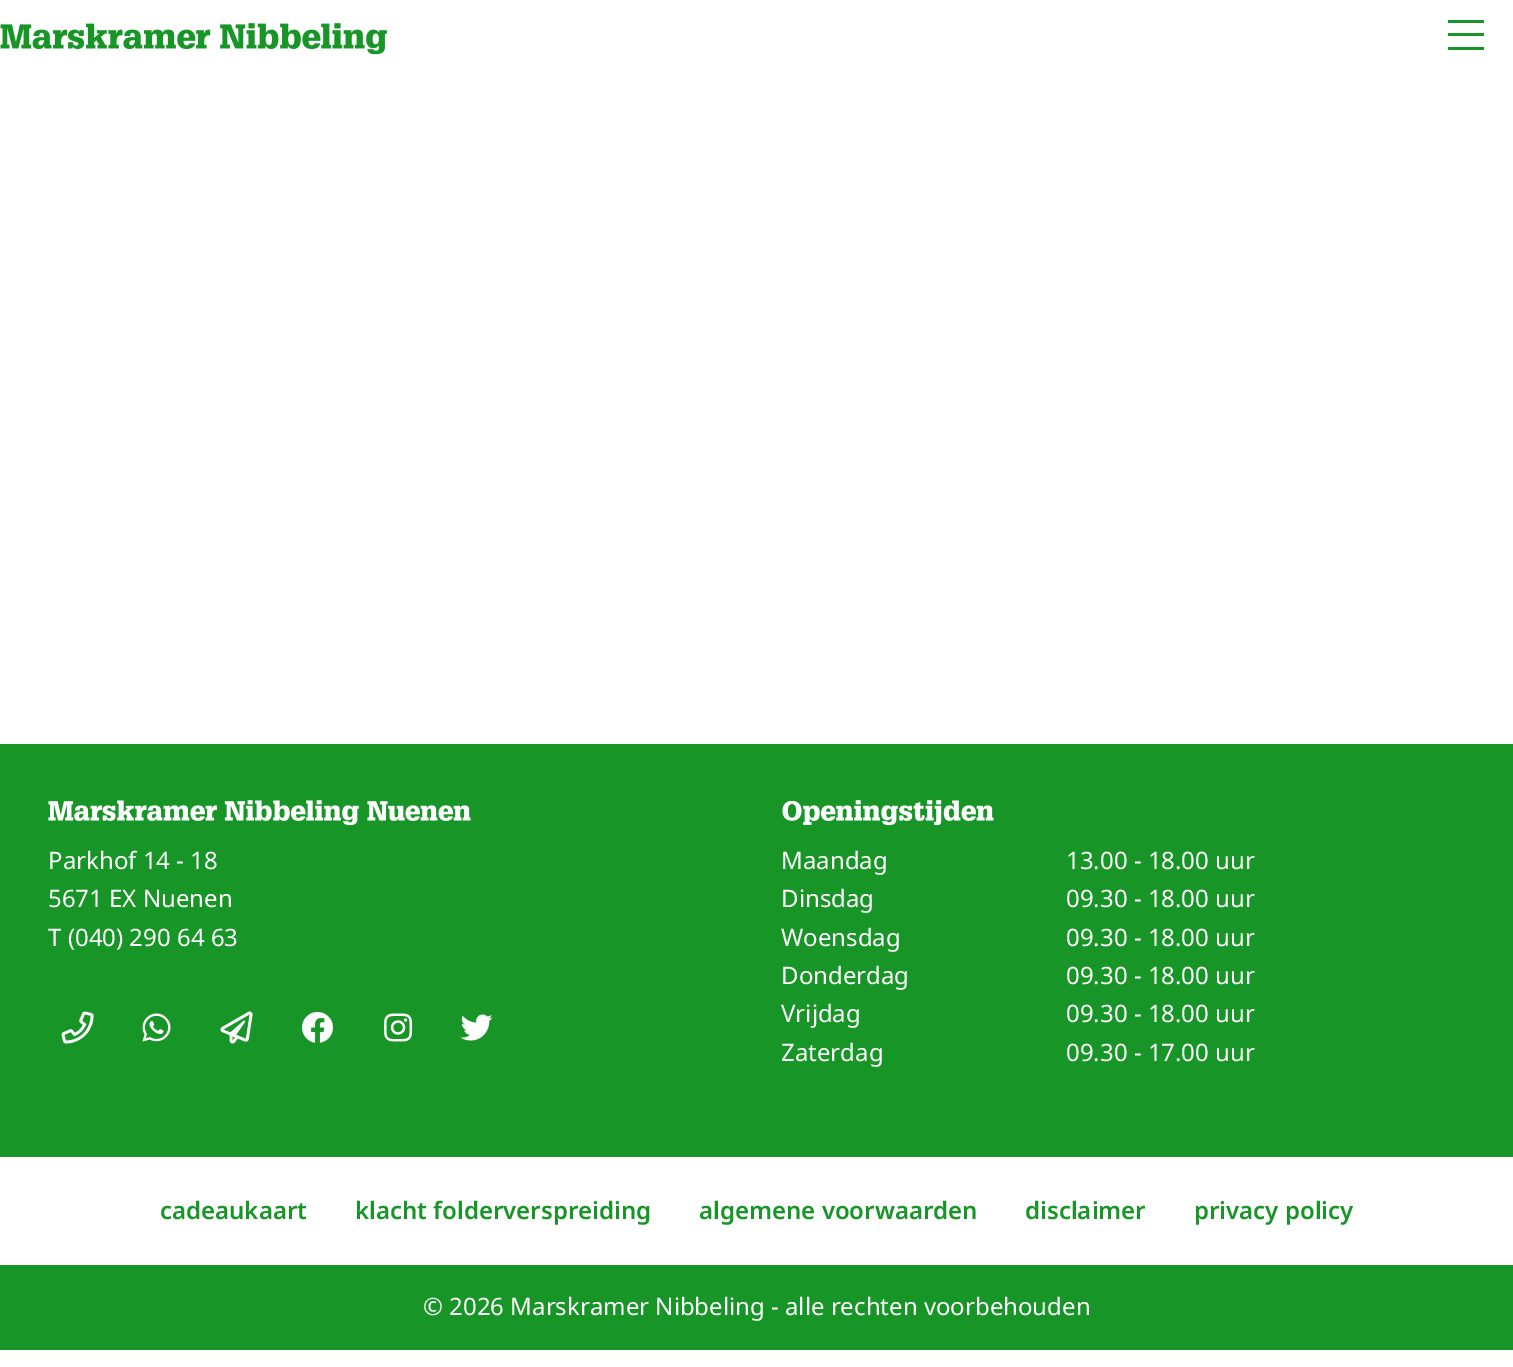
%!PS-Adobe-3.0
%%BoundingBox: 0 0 1513 1367
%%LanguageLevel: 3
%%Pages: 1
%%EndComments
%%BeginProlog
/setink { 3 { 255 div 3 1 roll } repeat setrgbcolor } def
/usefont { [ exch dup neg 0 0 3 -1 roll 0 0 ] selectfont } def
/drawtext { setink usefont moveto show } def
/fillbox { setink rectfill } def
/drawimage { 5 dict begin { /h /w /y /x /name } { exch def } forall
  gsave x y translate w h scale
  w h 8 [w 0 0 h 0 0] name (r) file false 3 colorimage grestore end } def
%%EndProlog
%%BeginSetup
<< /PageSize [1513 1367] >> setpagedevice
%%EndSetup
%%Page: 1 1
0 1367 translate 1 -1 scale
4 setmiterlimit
0 0 1513 1367 255 255 255 fillbox
(assets/img1.rgb) 0 23 387 32 drawimage
1448 47 36 3 23 149 39 fillbox
1448 33 36 3 23 149 39 fillbox
1448 20 36 3 23 149 39 fillbox
0 744 1513 413 23 149 39 fillbox
(assets/img2.rgb) 48 800 423 26 drawimage
(Parkhof 14 - 18) 48 869 /NotoSans-Regular 24 255 255 255 drawtext
(5671 EX Nuenen) 48 907 /NotoSans-Regular 24 255 255 255 drawtext
(T \(040\) 290 64 63) 48 946 /NotoSans-Regular 24 255 255 255 drawtext
(assets/img3.rgb) 61 1011 33 33 drawimage
(assets/img4.rgb) 142 1013 29 29 drawimage
(assets/img5.rgb) 220 1011 33 33 drawimage
(assets/img6.rgb) 302 1012 31 31 drawimage
(assets/img7.rgb) 384 1013 29 29 drawimage
(assets/img8.rgb) 460 1014 33 27 drawimage
(assets/img9.rgb) 782 800 212 26 drawimage
(Maandag) 781 869 /NotoSans-Regular 24 255 255 255 drawtext
(Dinsdag) 781 907 /NotoSans-Regular 24 255 255 255 drawtext
(Woensdag) 781 946 /NotoSans-Regular 24 255 255 255 drawtext
(Donderdag) 781 984 /NotoSans-Regular 24 255 255 255 drawtext
(Vrijdag) 781 1022 /NotoSans-Regular 24 255 255 255 drawtext
(Zaterdag) 781 1061 /NotoSans-Regular 24 255 255 255 drawtext
(13.00 - 18.00 uur) 1066 869 /NotoSans-Regular 24 255 255 255 drawtext
(09.30 - 18.00 uur) 1066 907 /NotoSans-Regular 24 255 255 255 drawtext
(09.30 - 18.00 uur) 1066 946 /NotoSans-Regular 24 255 255 255 drawtext
(09.30 - 18.00 uur) 1066 984 /NotoSans-Regular 24 255 255 255 drawtext
(09.30 - 18.00 uur) 1066 1022 /NotoSans-Regular 24 255 255 255 drawtext
(09.30 - 17.00 uur) 1066 1061 /NotoSans-Regular 24 255 255 255 drawtext
(cadeaukaart) 160 1219 /NotoSans-SemiBold 24 23 149 39 drawtext
(klacht folderverspreiding) 355 1219 /NotoSans-SemiBold 24 23 149 39 drawtext
(algemene voorwaarden) 699 1219 /NotoSans-SemiBold 24 23 149 39 drawtext
(disclaimer) 1025 1219 /NotoSans-SemiBold 24 23 149 39 drawtext
(privacy policy) 1194 1219 /NotoSans-SemiBold 24 23 149 39 drawtext
0 1265 1513 85 23 149 39 fillbox
(© 2026 Marskramer Nibbeling - alle rechten voorbehouden) 423 1315 /NotoSans-Regular 24 255 255 255 drawtext
showpage
%%EOF
